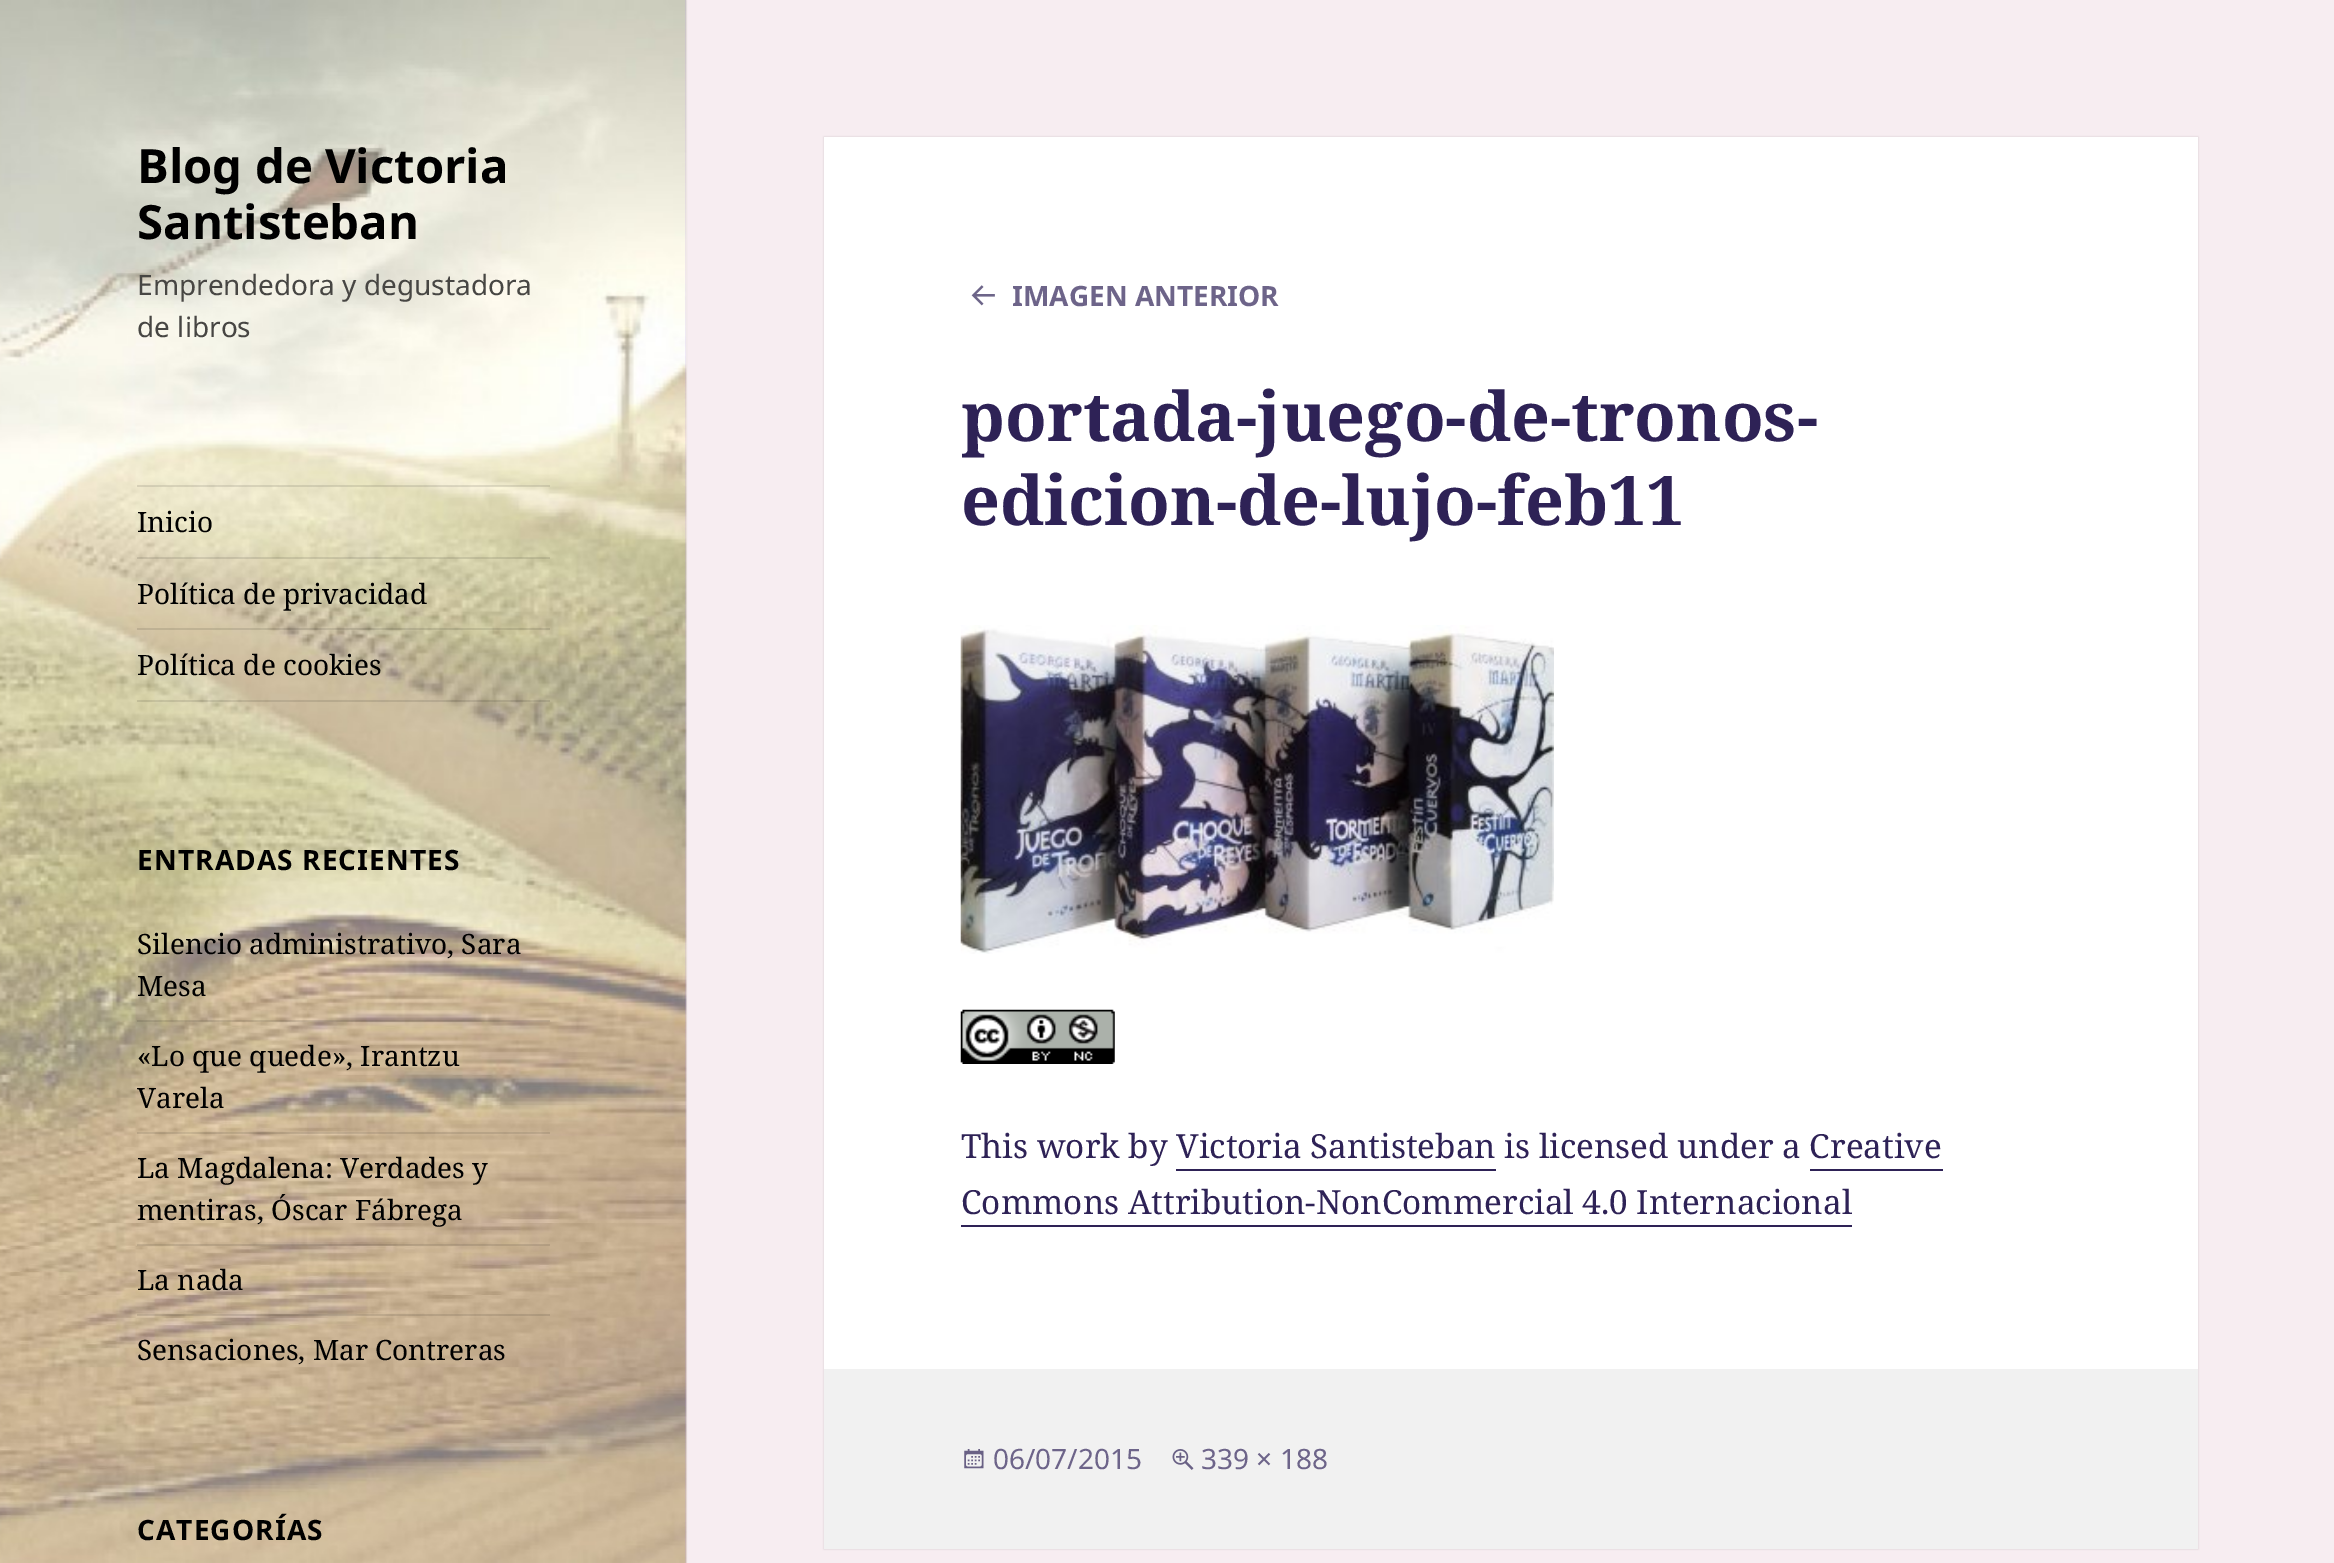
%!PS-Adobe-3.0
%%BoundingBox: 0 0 2334 1563
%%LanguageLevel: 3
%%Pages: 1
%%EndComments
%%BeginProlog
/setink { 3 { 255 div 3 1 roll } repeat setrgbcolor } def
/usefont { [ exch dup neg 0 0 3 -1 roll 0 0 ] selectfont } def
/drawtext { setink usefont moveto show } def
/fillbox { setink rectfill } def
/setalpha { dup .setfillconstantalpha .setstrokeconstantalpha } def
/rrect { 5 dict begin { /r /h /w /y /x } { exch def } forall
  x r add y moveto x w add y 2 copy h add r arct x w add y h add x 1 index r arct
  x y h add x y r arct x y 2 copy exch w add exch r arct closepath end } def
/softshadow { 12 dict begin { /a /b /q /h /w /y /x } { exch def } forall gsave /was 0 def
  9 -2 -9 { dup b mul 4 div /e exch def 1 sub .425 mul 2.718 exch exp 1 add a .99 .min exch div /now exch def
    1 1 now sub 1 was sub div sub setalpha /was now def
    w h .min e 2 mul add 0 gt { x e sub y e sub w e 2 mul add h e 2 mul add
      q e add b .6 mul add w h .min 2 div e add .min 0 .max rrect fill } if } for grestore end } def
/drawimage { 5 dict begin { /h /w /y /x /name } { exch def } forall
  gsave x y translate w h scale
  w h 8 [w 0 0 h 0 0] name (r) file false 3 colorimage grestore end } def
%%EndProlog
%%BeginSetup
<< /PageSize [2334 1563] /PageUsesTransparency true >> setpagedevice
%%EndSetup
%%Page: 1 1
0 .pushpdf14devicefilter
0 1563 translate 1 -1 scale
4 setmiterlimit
0 0 2334 1563 247 237 241 fillbox
0 0 0 setink
0 0 686 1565 0 1 0.15 softshadow
(assets/img1.rgb) 0 0 687 1563 drawimage
(Blog de Victoria) 137 183 /NotoSans-Bold 47.25 0 0 0 drawtext
(Santisteban) 137 239 /NotoSans-Bold 47.25 0 0 0 drawtext
(Emprendedora y degustadora) 137 295 /NotoSans-Regular 28 71 70 67 drawtext
(de libros) 137 337 /NotoSans-Regular 28 71 70 67 drawtext
0.1 setalpha
137 485 413 2 0 0 0 fillbox
137 700 413 2 0 0 0 fillbox
1 setalpha
(Inicio) 137 532 /NotoSerif-Regular 28 0 0 0 drawtext
0.1 setalpha
137 557 413 2 0 0 0 fillbox
1 setalpha
(Política de privacidad) 137 604 /NotoSerif-Regular 28 0 0 0 drawtext
0.1 setalpha
137 628 413 2 0 0 0 fillbox
1 setalpha
(Política de cookies) 137 675 /NotoSerif-Regular 28 0 0 0 drawtext
/NotoSans-Bold 28 usefont
137 870 moveto 1.1 0 (ENTRADAS RECIENTES) ashow
(Silencio administrativo, Sara) 137 954 /NotoSerif-Regular 28 0 0 0 drawtext
(Mesa) 137 996 /NotoSerif-Regular 28 0 0 0 drawtext
0.1 setalpha
137 1020 413 2 0 0 0 fillbox
1 setalpha
(«Lo que quede», Irantzu) 137 1066 /NotoSerif-Regular 28 0 0 0 drawtext
(Varela) 137 1108 /NotoSerif-Regular 28 0 0 0 drawtext
0.1 setalpha
137 1132 413 2 0 0 0 fillbox
1 setalpha
(La Magdalena: Verdades y) 137 1178 /NotoSerif-Regular 28 0 0 0 drawtext
(mentiras, Óscar Fábrega) 137 1220 /NotoSerif-Regular 28 0 0 0 drawtext
0.1 setalpha
137 1244 413 2 0 0 0 fillbox
1 setalpha
(La nada) 137 1290 /NotoSerif-Regular 28 0 0 0 drawtext
0.1 setalpha
137 1314 413 2 0 0 0 fillbox
1 setalpha
(Sensaciones, Mar Contreras) 137 1360 /NotoSerif-Regular 28 0 0 0 drawtext
/NotoSans-Bold 28 usefont
137 1540 moveto 1.1 0 (CATEGORÍAS) ashow
824 137 1374 1412 0 1 0.15 softshadow
824 137 1374 1232 255 255 255 fillbox
(assets/img2.rgb) 971 285 24 21 drawimage
(IMAGEN ANTERIOR) 1012 306 /NotoSans-Bold 28 109 100 137 drawtext
(portada-juego-de-tronos-) 961 441 /NotoSerif-Bold 68.25 46 34 86 drawtext
(edicion-de-lujo-feb11) 961 525 /NotoSerif-Bold 68.25 46 34 86 drawtext
(assets/img3.rgb) 960 625 594 329 drawimage
(assets/img4.rgb) 960 1009 155 55 drawimage
(This work by Victoria Santisteban is licensed under a Creative) 961 1158 /NotoSerif-Regular 33.25 46 34 86 drawtext
1176 1169 320 2 46 34 86 fillbox
(Commons Attribution-NonCommercial 4.0 Internacional) 961 1214 /NotoSerif-Regular 33.25 46 34 86 drawtext
1810 1169 133 2 46 34 86 fillbox
961 1225 891 2 46 34 86 fillbox
824 1369 1374 180 241 241 241 fillbox
(assets/img5.rgb) 964 1449 20 20 drawimage
(06/07/2015) 993 1469 /NotoSans-Regular 28 109 100 137 drawtext
(assets/img6.rgb) 1172 1449 22 21 drawimage
(339 × 188) 1201 1469 /NotoSans-Regular 28 109 100 137 drawtext
.poppdf14devicefilter showpage
%%EOF
